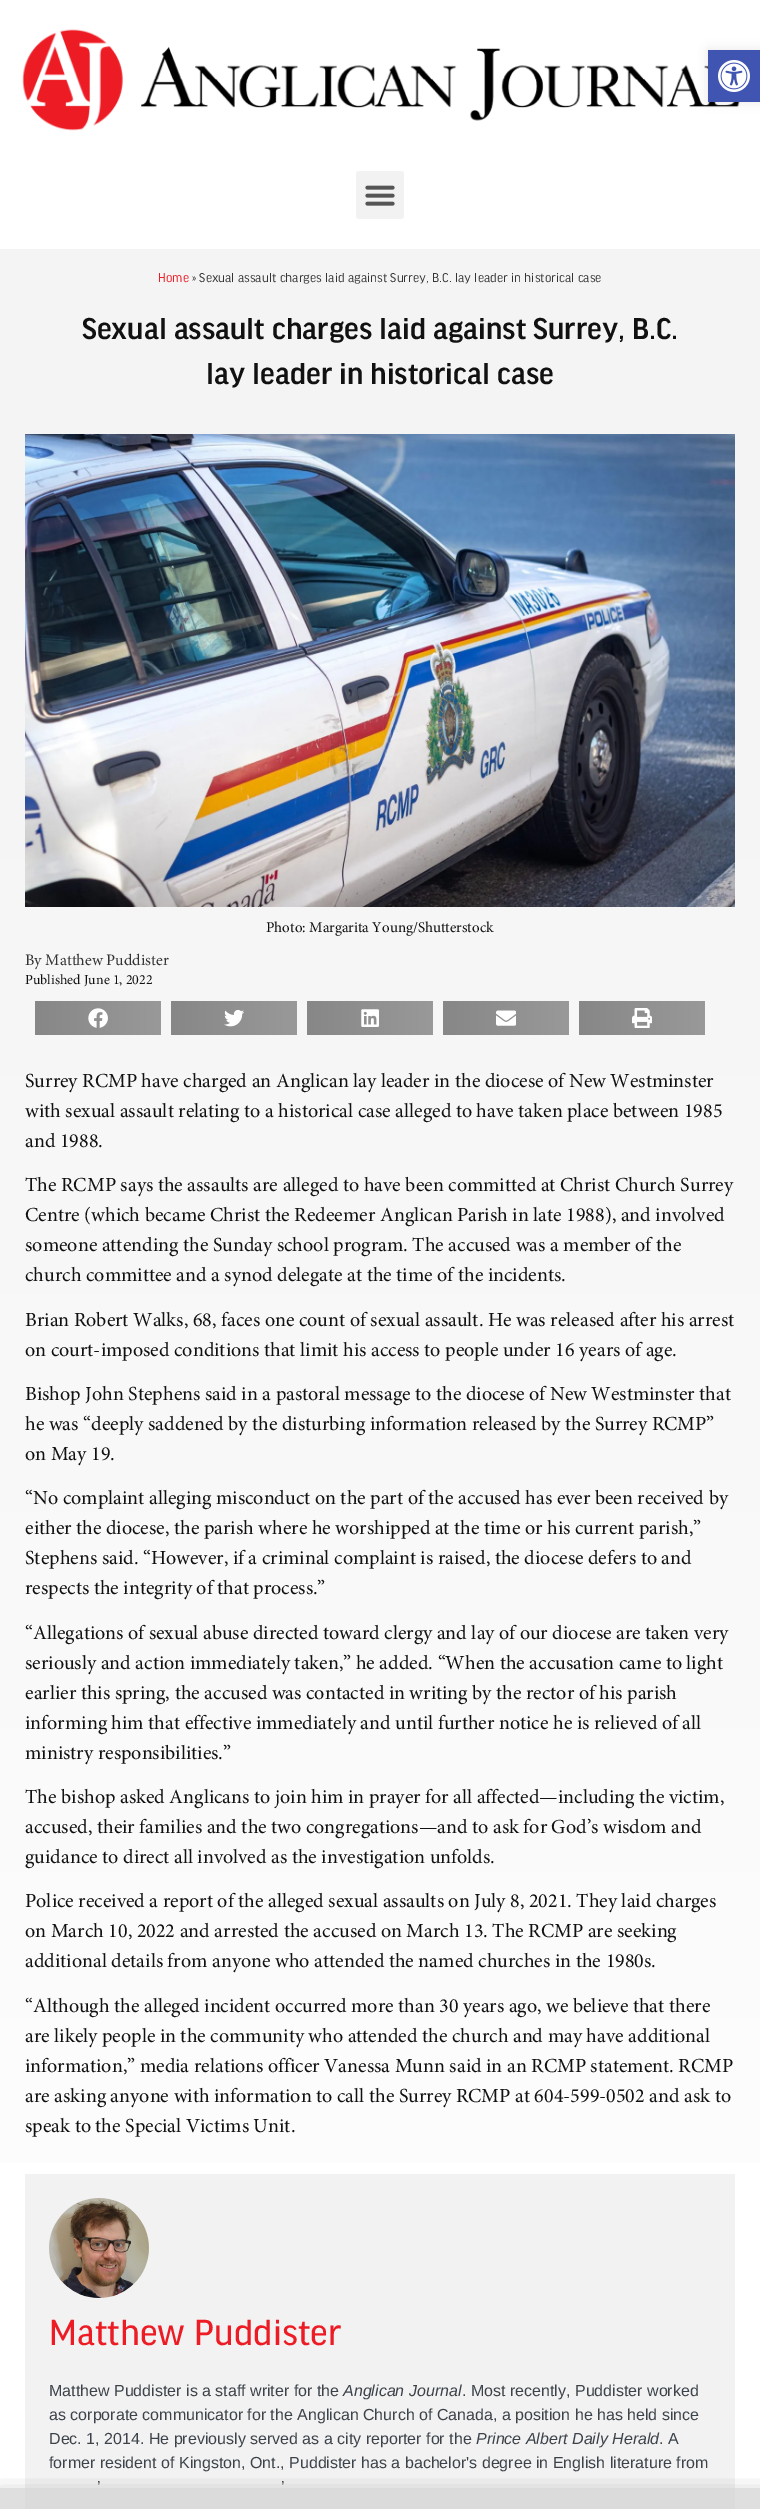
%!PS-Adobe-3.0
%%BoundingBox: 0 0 760 2509
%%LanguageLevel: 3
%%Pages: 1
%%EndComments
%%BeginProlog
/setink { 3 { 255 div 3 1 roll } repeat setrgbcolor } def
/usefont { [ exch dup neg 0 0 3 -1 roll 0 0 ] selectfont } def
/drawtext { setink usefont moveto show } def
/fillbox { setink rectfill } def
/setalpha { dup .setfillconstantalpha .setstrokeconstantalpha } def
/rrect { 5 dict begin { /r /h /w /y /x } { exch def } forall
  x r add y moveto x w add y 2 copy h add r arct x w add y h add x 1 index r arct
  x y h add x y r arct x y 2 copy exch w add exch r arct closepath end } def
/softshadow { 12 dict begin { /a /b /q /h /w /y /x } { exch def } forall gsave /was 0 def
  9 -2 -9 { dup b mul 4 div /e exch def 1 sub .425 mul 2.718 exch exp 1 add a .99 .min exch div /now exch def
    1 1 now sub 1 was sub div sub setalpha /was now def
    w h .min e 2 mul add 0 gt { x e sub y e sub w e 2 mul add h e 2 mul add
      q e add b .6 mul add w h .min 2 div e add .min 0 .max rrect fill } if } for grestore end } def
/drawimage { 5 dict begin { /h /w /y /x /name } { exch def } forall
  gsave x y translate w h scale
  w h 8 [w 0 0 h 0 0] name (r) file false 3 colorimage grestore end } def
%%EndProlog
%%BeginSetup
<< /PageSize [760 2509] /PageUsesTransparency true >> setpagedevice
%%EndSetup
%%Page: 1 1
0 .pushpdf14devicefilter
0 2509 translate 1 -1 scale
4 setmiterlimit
0 0 760 2509 255 255 255 fillbox
(assets/img1.rgb) 22 29 718 102 drawimage
242 242 242 setink
356 171 48 48 3 rrect fill
(assets/img2.rgb) 365 185 30 21 drawimage
0 0 0 setink
708 50 52 52 0 5 0.1 softshadow
708 50 52 52 64 84 178 fillbox
(assets/img3.rgb) 718 60 32 32 drawimage
0 249 760 175 244 244 244 fillbox
(Home) 158 282 /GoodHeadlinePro-Regular 13.6 237 27 36 drawtext
(» Sexual assault charges laid against Surrey, B.C. lay leader in historical case) 192 282 /GoodHeadlinePro-Regular 13.6 51 51 51 drawtext
(Sexual assault charges laid against Surrey, B.C.) 82 339 /GoodHeadlinePro-Medium 32 17 17 17 drawtext
(lay leader in historical case) 206 384 /GoodHeadlinePro-Medium 32 17 17 17 drawtext
gsave 0 424 moveto 760 424 lineto 760 2163 lineto 0 2163 lineto closepath clip newpath
<< /ShadingType 2 /ColorSpace /DeviceRGB /Coords [380 424 380 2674] /Extend [true true] /Function << /FunctionType 2 /Domain [0 1] /C0 [0.957 0.957 0.957] /C1 [1 1 1] /N 1 >> >> shfill grestore
(assets/img4.rgb) 25 434 710 473 drawimage
(Photo: Margarita Young/Shutterstock) 266 932 /Minion-Regular 15 17 17 17 drawtext
(By Matthew Puddister) 25 965 /Minion-Regular 16 51 51 51 drawtext
(Published June 1, 2022) 25 984 /Minion-Regular 14 17 17 17 drawtext
gsave 35 1001 moveto 161 1001 lineto 161 1035 lineto 35 1035 lineto closepath clip newpath
<< /ShadingType 2 /ColorSpace /DeviceRGB /Coords [35 1018 161 1018] /Extend [true true] /Function << /FunctionType 2 /Domain [0 1] /C0 [0.529 0.529 0.529] /C1 [0.6 0.6 0.6] /N 1 >> >> shfill grestore
(assets/img5.rgb) 88 1008 20 20 drawimage
gsave 171 1001 moveto 297 1001 lineto 297 1035 lineto 171 1035 lineto closepath clip newpath
<< /ShadingType 2 /ColorSpace /DeviceRGB /Coords [171 1018 297 1018] /Extend [true true] /Function << /FunctionType 2 /Domain [0 1] /C0 [0.529 0.529 0.529] /C1 [0.6 0.6 0.6] /N 1 >> >> shfill grestore
(assets/img6.rgb) 224 1009 20 18 drawimage
gsave 307 1001 moveto 433 1001 lineto 433 1035 lineto 307 1035 lineto closepath clip newpath
<< /ShadingType 2 /ColorSpace /DeviceRGB /Coords [307 1018 433 1018] /Extend [true true] /Function << /FunctionType 2 /Domain [0 1] /C0 [0.529 0.529 0.529] /C1 [0.6 0.6 0.6] /N 1 >> >> shfill grestore
(assets/img7.rgb) 361 1009 18 18 drawimage
gsave 443 1001 moveto 569 1001 lineto 569 1035 lineto 443 1035 lineto closepath clip newpath
<< /ShadingType 2 /ColorSpace /DeviceRGB /Coords [443 1018 569 1018] /Extend [true true] /Function << /FunctionType 2 /Domain [0 1] /C0 [0.529 0.529 0.529] /C1 [0.6 0.6 0.6] /N 1 >> >> shfill grestore
(assets/img8.rgb) 496 1010 20 16 drawimage
gsave 579 1001 moveto 705 1001 lineto 705 1035 lineto 579 1035 lineto closepath clip newpath
<< /ShadingType 2 /ColorSpace /DeviceRGB /Coords [579 1018 705 1018] /Extend [true true] /Function << /FunctionType 2 /Domain [0 1] /C0 [0.529 0.529 0.529] /C1 [0.6 0.6 0.6] /N 1 >> >> shfill grestore
(assets/img9.rgb) 632 1008 20 20 drawimage
(Surrey RCMP have charged an Anglican lay leader in the diocese of New Westminster) 25 1087 /Minion-Regular 20 17 17 17 drawtext
(with sexual assault relating to a historical case alleged to have taken place between 1985) 25 1117 /Minion-Regular 20 17 17 17 drawtext
(and 1988.) 25 1147 /Minion-Regular 20 17 17 17 drawtext
(The RCMP says the assaults are alleged to have been committed at Christ Church Surrey) 25 1191 /Minion-Regular 20 17 17 17 drawtext
(Centre \(which became Christ the Redeemer Anglican Parish in late 1988\), and involved) 25 1221 /Minion-Regular 20 17 17 17 drawtext
(someone attending the Sunday school program. The accused was a member of the) 25 1251 /Minion-Regular 20 17 17 17 drawtext
(church committee and a synod delegate at the time of the incidents.) 25 1281 /Minion-Regular 20 17 17 17 drawtext
(Brian Robert Walks, 68, faces one count of sexual assault. He was released after his arrest) 25 1326 /Minion-Regular 20 17 17 17 drawtext
(on court-imposed conditions that limit his access to people under 16 years of age.) 25 1356 /Minion-Regular 20 17 17 17 drawtext
(Bishop John Stephens said in a pastoral message to the diocese of New Westminster that) 25 1400 /Minion-Regular 20 17 17 17 drawtext
(he was “deeply saddened by the disturbing information released by the Surrey RCMP”) 25 1430 /Minion-Regular 20 17 17 17 drawtext
(on May 19.) 25 1460 /Minion-Regular 20 17 17 17 drawtext
(“No complaint alleging misconduct on the part of the accused has ever been received by) 25 1504 /Minion-Regular 20 17 17 17 drawtext
(either the diocese, the parish where he worshipped at the time or his current parish,”) 25 1534 /Minion-Regular 20 17 17 17 drawtext
(Stephens said. “However, if a criminal complaint is raised, the diocese defers to and) 25 1564 /Minion-Regular 20 17 17 17 drawtext
(respects the integrity of that process.”) 25 1594 /Minion-Regular 20 17 17 17 drawtext
(“Allegations of sexual abuse directed toward clergy and lay of our diocese are taken very) 25 1639 /Minion-Regular 20 17 17 17 drawtext
(seriously and action immediately taken,” he added. “When the accusation came to light) 25 1669 /Minion-Regular 20 17 17 17 drawtext
(earlier this spring, the accused was contacted in writing by the rector of his parish) 25 1699 /Minion-Regular 20 17 17 17 drawtext
(informing him that effective immediately and until further notice he is relieved of all) 25 1729 /Minion-Regular 20 17 17 17 drawtext
(ministry responsibilities.”) 25 1759 /Minion-Regular 20 17 17 17 drawtext
(The bishop asked Anglicans to join him in prayer for all affected—including the victim,) 25 1803 /Minion-Regular 20 17 17 17 drawtext
(accused, their families and the two congregations—and to ask for God’s wisdom and) 25 1833 /Minion-Regular 20 17 17 17 drawtext
(guidance to direct all involved as the investigation unfolds.) 25 1863 /Minion-Regular 20 17 17 17 drawtext
(Police received a report of the alleged sexual assaults on July 8, 2021. They laid charges) 25 1907 /Minion-Regular 20 17 17 17 drawtext
(on March 10, 2022 and arrested the accused on March 13. The RCMP are seeking) 25 1937 /Minion-Regular 20 17 17 17 drawtext
(additional details from anyone who attended the named churches in the 1980s.) 25 1967 /Minion-Regular 20 17 17 17 drawtext
(“Although the alleged incident occurred more than 30 years ago, we believe that there) 25 2012 /Minion-Regular 20 17 17 17 drawtext
(are likely people in the community who attended the church and may have additional) 25 2042 /Minion-Regular 20 17 17 17 drawtext
(information,” media relations officer Vanessa Munn said in an RCMP statement. RCMP) 25 2072 /Minion-Regular 20 17 17 17 drawtext
(are asking anyone with information to call the Surrey RCMP at 604-599-0502 and ask to) 25 2102 /Minion-Regular 20 17 17 17 drawtext
(speak to the Special Victims Unit.) 25 2132 /Minion-Regular 20 17 17 17 drawtext
25 2174 710 335 242 242 242 fillbox
(assets/img10.rgb) 49 2198 100 100 drawimage
(Matthew Puddister) 49 2345 /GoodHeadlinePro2-Medium 38.5 237 27 36 drawtext
(Matthew Puddister is a staff writer for the) 49 2396 /LiberationSans-Regular 16 60 67 74 drawtext
(Anglican Journal) 343 2396 /LiberationSans-Italic 16 60 67 74 drawtext
(. Most recently, Puddister worked) 462 2396 /LiberationSans-Regular 16 60 67 74 drawtext
(as corporate communicator for the Anglican Church of Canada, a position he has held since) 49 2420 /LiberationSans-Regular 16 60 67 74 drawtext
(Dec. 1, 2014. He previously served as a city reporter for the) 49 2444 /LiberationSans-Regular 16 60 67 74 drawtext
(Prince Albert Daily Herald) 476 2444 /LiberationSans-Italic 16 60 67 74 drawtext
(. A) 659 2444 /LiberationSans-Regular 16 60 67 74 drawtext
(former resident of Kingston, Ont., Puddister has a bachelor's degree in English literature from) 49 2468 /LiberationSans-Regular 16 60 67 74 drawtext
(’) 97 2492 /LiberationSans-Regular 16 60 67 74 drawtext
(’) 281 2492 /LiberationSans-Regular 16 60 67 74 drawtext
gsave
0 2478 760 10 rectclip
0 0 0 setink
-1 2493 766 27 0 11.5 0.2 softshadow
grestore
0.7 setalpha
0 2488 760 21 209 209 209 fillbox
.poppdf14devicefilter showpage
%%EOF
